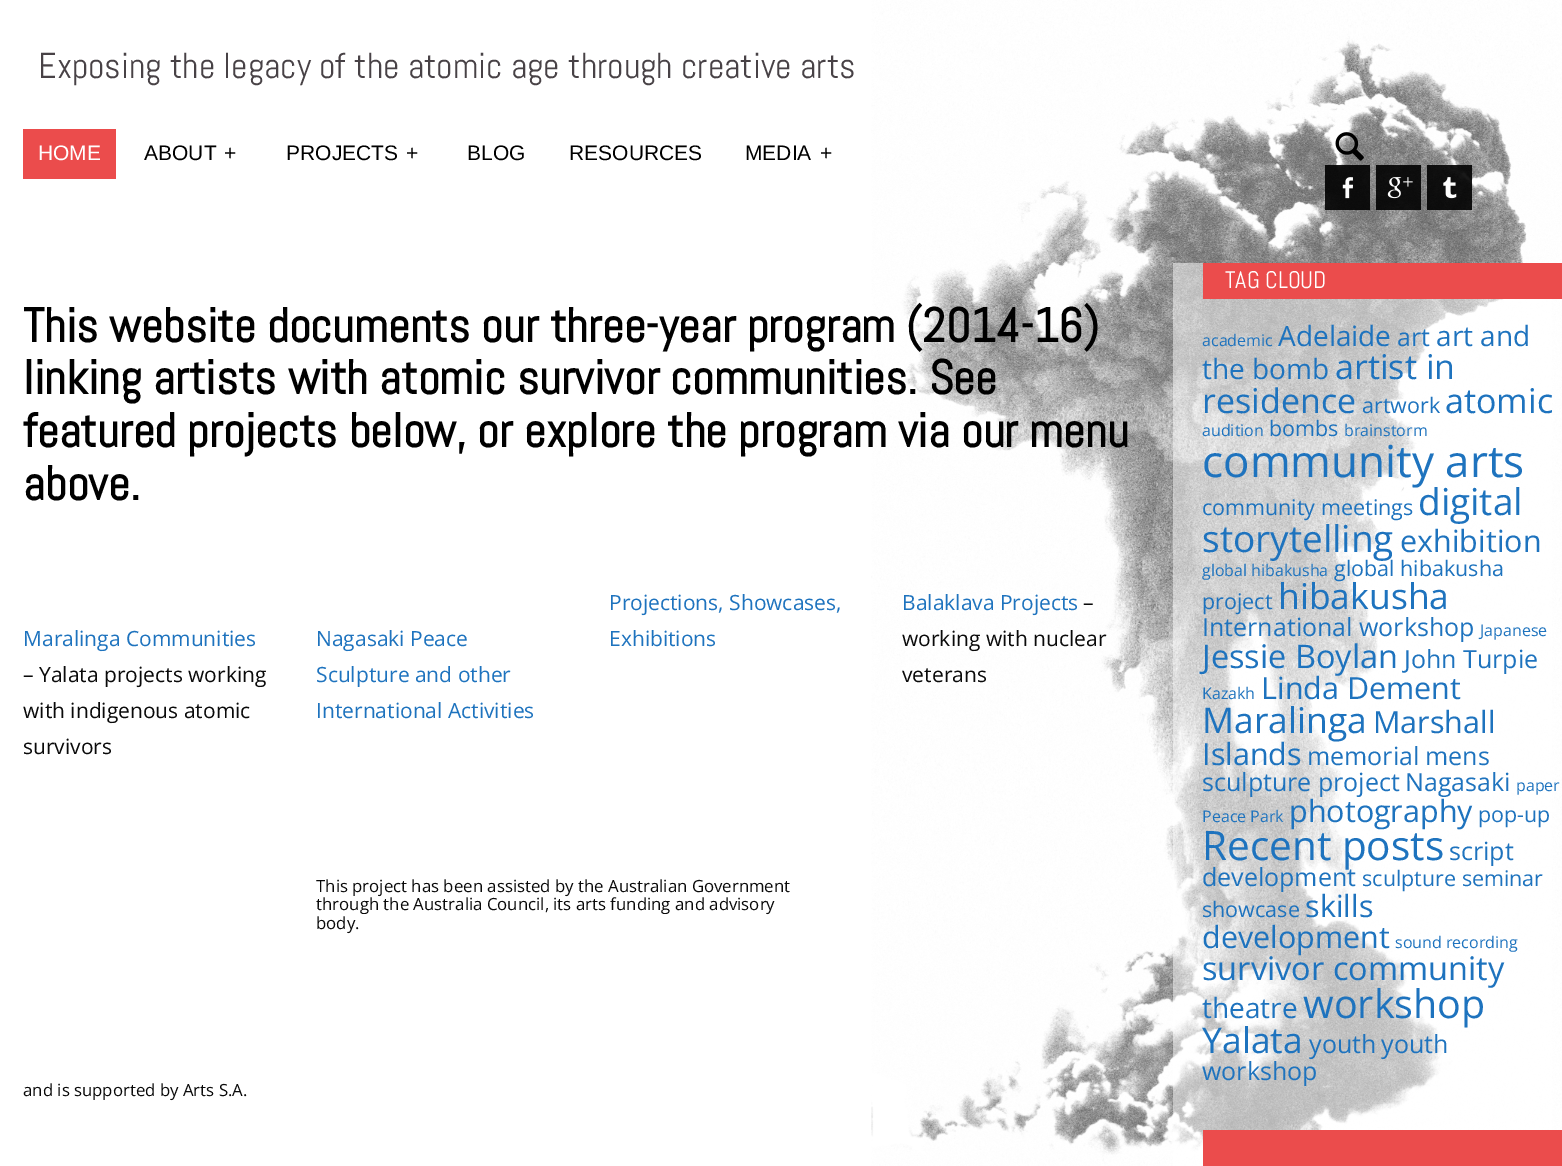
%!PS-Adobe-3.0
%%BoundingBox: 0 0 1562 1166
%%LanguageLevel: 3
%%Pages: 1
%%EndComments
%%BeginProlog
/setink { 3 { 255 div 3 1 roll } repeat setrgbcolor } def
/usefont { [ exch dup neg 0 0 3 -1 roll 0 0 ] selectfont } def
/drawtext { setink usefont moveto show } def
/fillbox { setink rectfill } def
/setalpha { dup .setfillconstantalpha .setstrokeconstantalpha } def
/drawimage { 5 dict begin { /h /w /y /x /name } { exch def } forall
  gsave x y translate w h scale
  w h 8 [w 0 0 h 0 0] name (r) file false 3 colorimage grestore end } def
%%EndProlog
%%BeginSetup
<< /PageSize [1562 1166] /PageUsesTransparency true >> setpagedevice
%%EndSetup
%%Page: 1 1
0 .pushpdf14devicefilter
0 1166 translate 1 -1 scale
4 setmiterlimit
0 0 1562 1166 255 255 255 fillbox
(assets/img1.rgb) 871 0 691 1166 drawimage
(Exposing the legacy of the atomic age through creative arts) 38 78 /Abel-Regular 36 72 66 70 drawtext
23 129 93 50 235 76 76 fillbox
(HOME) 38 160 /LiberationSans-Regular 21 255 255 255 drawtext
(ABOUT) 144 160 /LiberationSans-Regular 21 0 0 0 drawtext
(+) 224 160 /LiberationSans-Regular 21 0 0 0 drawtext
(PROJECTS) 286 160 /LiberationSans-Regular 21 0 0 0 drawtext
(+) 406 160 /LiberationSans-Regular 21 0 0 0 drawtext
(BLOG) 467 160 /LiberationSans-Regular 21 0 0 0 drawtext
(RESOURCES) 569 160 /LiberationSans-Regular 21 0 0 0 drawtext
(MEDIA) 745 160 /LiberationSans-Regular 21 0 0 0 drawtext
(+) 820 160 /LiberationSans-Regular 21 0 0 0 drawtext
(assets/img2.rgb) 1335 132 29 29 drawimage
0.9 setalpha
1325 165 45 45 0 0 0 fillbox
1 setalpha
(assets/img3.rgb) 1342 177 11 22 drawimage
0.9 setalpha
1376 165 45 45 0 0 0 fillbox
1 setalpha
(assets/img4.rgb) 1387 177 26 22 drawimage
0.9 setalpha
1427 165 45 45 0 0 0 fillbox
1 setalpha
(assets/img5.rgb) 1443 177 14 22 drawimage
(This website documents our three-year program \(2014-16\)) 23 342 /Abel-Bold 48 0 0 0 drawtext
(linking artists with atomic survivor communities. See) 23 394 /Abel-Bold 48 0 0 0 drawtext
(featured projects below, or explore the program via our menu) 23 447 /Abel-Bold 48 0 0 0 drawtext
(above.) 23 500 /Abel-Bold 48 0 0 0 drawtext
(Maralinga Communities) 23 646 /OpenSans-Regular 21 30 115 190 drawtext
(– Yalata projects working) 23 682 /OpenSans-Regular 21 10 10 10 drawtext
(with indigenous atomic) 23 718 /OpenSans-Regular 21 10 10 10 drawtext
(survivors) 23 754 /OpenSans-Regular 21 10 10 10 drawtext
(Nagasaki Peace) 316 646 /OpenSans-Regular 21 30 115 190 drawtext
(Sculpture and other) 316 682 /OpenSans-Regular 21 30 115 190 drawtext
(International Activities) 316 718 /OpenSans-Regular 21 30 115 190 drawtext
(Projections, Showcases,) 609 610 /OpenSans-Regular 21 30 115 190 drawtext
(Exhibitions) 609 646 /OpenSans-Regular 21 30 115 190 drawtext
(Balaklava Projects) 902 610 /OpenSans-Regular 21 30 115 190 drawtext
(–) 1083 610 /OpenSans-Regular 21 10 10 10 drawtext
(working with nuclear) 902 646 /OpenSans-Regular 21 10 10 10 drawtext
(veterans) 902 682 /OpenSans-Regular 21 10 10 10 drawtext
(This project has been assisted by the Australian Government) 316 892 /OpenSans-Regular 16.8 10 10 10 drawtext
(through the Australia Council, its arts funding and advisory) 316 910 /OpenSans-Regular 16.8 10 10 10 drawtext
(body.) 316 929 /OpenSans-Regular 16.8 10 10 10 drawtext
(and is supported by Arts S.A.) 23 1096 /OpenSans-Regular 16.8 10 10 10 drawtext
0.5 setalpha
1173 263 379 903 255 255 255 fillbox
1 setalpha
1203 263 359 36 235 76 76 fillbox
(TAG CLOUD) 1225 288 /Abel-Regular 24 255 255 255 drawtext
(academic) 1202 346 /OpenSans-Regular 16 30 115 190 drawtext
(Adelaide) 1278 346 /OpenSans-Regular 28 30 115 190 drawtext
(art) 1397 346 /OpenSans-Regular 25 30 115 190 drawtext
(art and) 1436 346 /OpenSans-Regular 28 30 115 190 drawtext
(the bomb) 1202 379 /OpenSans-Regular 28 30 115 190 drawtext
(artist in) 1335 379 /OpenSans-Regular 34 30 115 190 drawtext
(residence) 1202 413 /OpenSans-Regular 34 30 115 190 drawtext
(artwork) 1362 413 /OpenSans-Regular 21.5 30 115 190 drawtext
(atomic) 1445 413 /OpenSans-Regular 34 30 115 190 drawtext
(audition) 1202 436 /OpenSans-Regular 16 30 115 190 drawtext
(bombs) 1269 436 /OpenSans-Regular 21.5 30 115 190 drawtext
(brainstorm) 1344 436 /OpenSans-Regular 16 30 115 190 drawtext
(community arts) 1202 477 /OpenSans-Regular 44 30 115 190 drawtext
(community meetings) 1202 515 /OpenSans-Regular 21.5 30 115 190 drawtext
(digital) 1418 515 /OpenSans-Regular 37 30 115 190 drawtext
(storytelling) 1202 552 /OpenSans-Regular 37 30 115 190 drawtext
(exhibition) 1400 552 /OpenSans-Regular 30.5 30 115 190 drawtext
(global hibakusha) 1202 576 /OpenSans-Regular 16 30 115 190 drawtext
(global hibakusha) 1334 576 /OpenSans-Regular 21.5 30 115 190 drawtext
(project) 1202 609 /OpenSans-Regular 21.5 30 115 190 drawtext
(hibakusha) 1278 609 /OpenSans-Regular 35.5 30 115 190 drawtext
(International workshop) 1202 636 /OpenSans-Regular 25 30 115 190 drawtext
(Japanese) 1480 636 /OpenSans-Regular 16 30 115 190 drawtext
(Jessie Boylan) 1202 668 /OpenSans-Regular 32.5 30 115 190 drawtext
(John Turpie) 1404 668 /OpenSans-Regular 25 30 115 190 drawtext
(Kazakh) 1202 699 /OpenSans-Regular 16 30 115 190 drawtext
(Linda Dement) 1261 699 /OpenSans-Regular 30.5 30 115 190 drawtext
(Maralinga) 1202 733 /OpenSans-Regular 35.5 30 115 190 drawtext
(Marshall) 1373 733 /OpenSans-Regular 30.5 30 115 190 drawtext
(Islands) 1202 765 /OpenSans-Regular 30.5 30 115 190 drawtext
(memorial) 1307 765 /OpenSans-Regular 25 30 115 190 drawtext
(mens) 1425 765 /OpenSans-Regular 25 30 115 190 drawtext
(sculpture project) 1202 791 /OpenSans-Regular 25 30 115 190 drawtext
(Nagasaki) 1405 791 /OpenSans-Regular 25 30 115 190 drawtext
(paper) 1516 791 /OpenSans-Regular 16 30 115 190 drawtext
(Peace Park) 1202 822 /OpenSans-Regular 16 30 115 190 drawtext
(photography) 1289 822 /OpenSans-Regular 30.5 30 115 190 drawtext
(pop-up) 1478 822 /OpenSans-Regular 21.5 30 115 190 drawtext
(Recent posts) 1202 860 /OpenSans-Regular 40.5 30 115 190 drawtext
(script) 1449 860 /OpenSans-Regular 25 30 115 190 drawtext
(development) 1202 886 /OpenSans-Regular 25 30 115 190 drawtext
(sculpture seminar) 1362 886 /OpenSans-Regular 21.5 30 115 190 drawtext
(showcase) 1202 917 /OpenSans-Regular 21.5 30 115 190 drawtext
(skills) 1305 917 /OpenSans-Regular 30.5 30 115 190 drawtext
(development) 1202 948 /OpenSans-Regular 30.5 30 115 190 drawtext
(sound recording) 1395 948 /OpenSans-Regular 16 30 115 190 drawtext
(survivor community) 1202 980 /OpenSans-Regular 32.5 30 115 190 drawtext
(theatre) 1202 1018 /OpenSans-Regular 28 30 115 190 drawtext
(workshop) 1303 1018 /OpenSans-Regular 39.5 30 115 190 drawtext
(Yalata) 1202 1053 /OpenSans-Regular 35.5 30 115 190 drawtext
(youth) 1309 1053 /OpenSans-Regular 25 30 115 190 drawtext
(youth) 1381 1053 /OpenSans-Regular 25 30 115 190 drawtext
(workshop) 1202 1080 /OpenSans-Regular 25 30 115 190 drawtext
1203 1130 359 36 235 76 76 fillbox
.poppdf14devicefilter showpage
%%EOF
